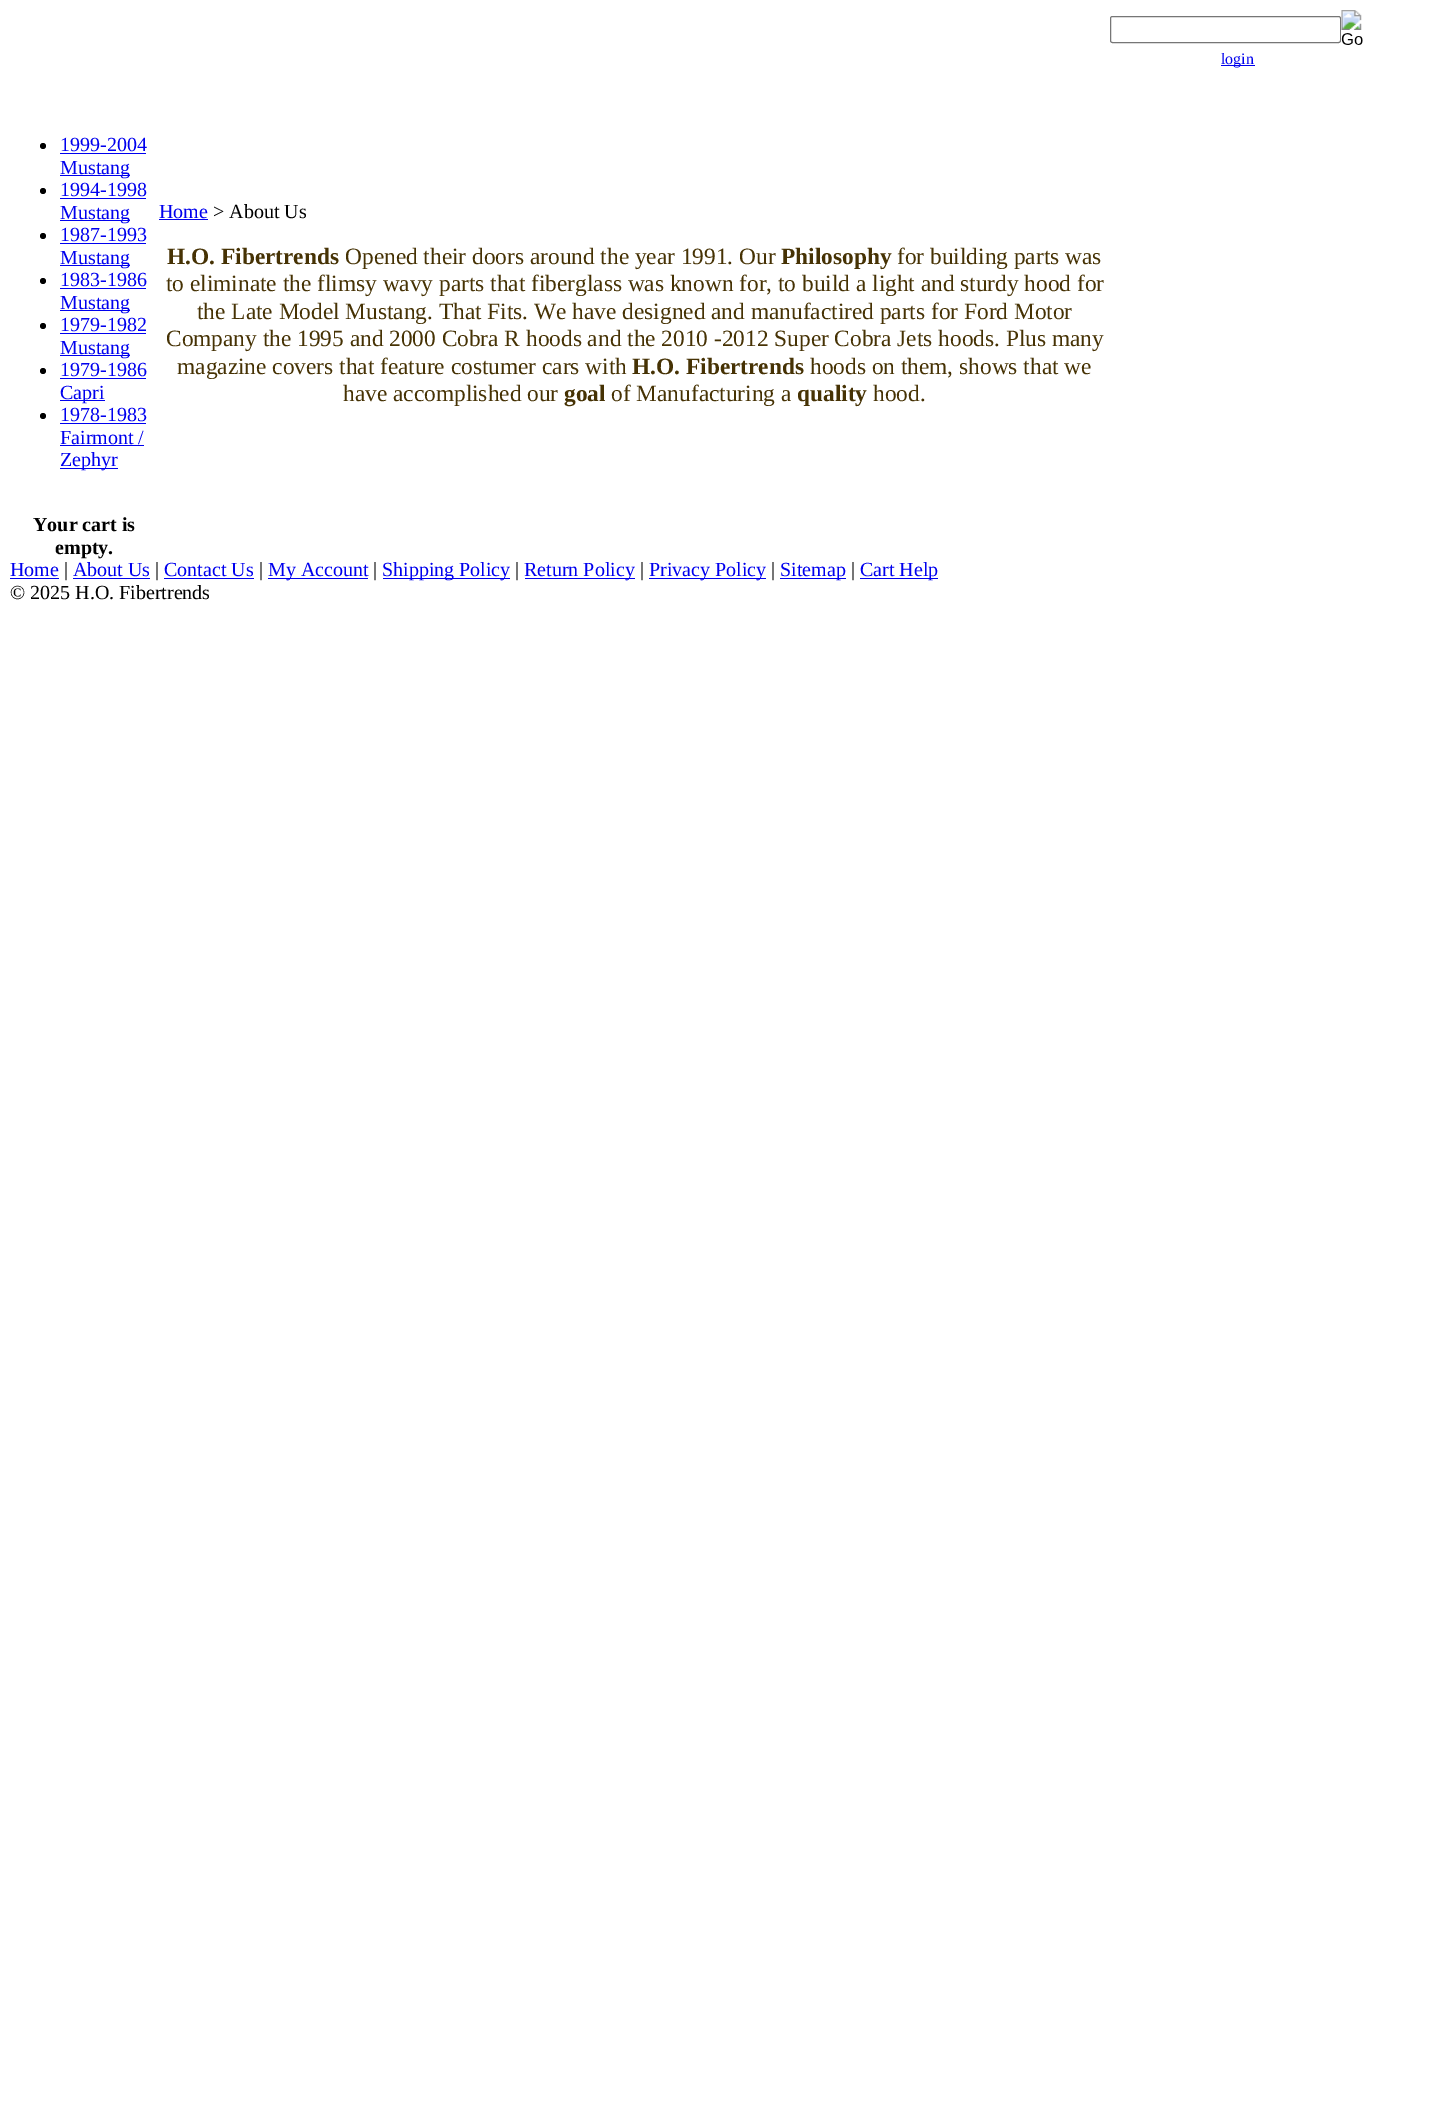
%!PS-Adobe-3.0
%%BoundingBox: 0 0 1435 2126
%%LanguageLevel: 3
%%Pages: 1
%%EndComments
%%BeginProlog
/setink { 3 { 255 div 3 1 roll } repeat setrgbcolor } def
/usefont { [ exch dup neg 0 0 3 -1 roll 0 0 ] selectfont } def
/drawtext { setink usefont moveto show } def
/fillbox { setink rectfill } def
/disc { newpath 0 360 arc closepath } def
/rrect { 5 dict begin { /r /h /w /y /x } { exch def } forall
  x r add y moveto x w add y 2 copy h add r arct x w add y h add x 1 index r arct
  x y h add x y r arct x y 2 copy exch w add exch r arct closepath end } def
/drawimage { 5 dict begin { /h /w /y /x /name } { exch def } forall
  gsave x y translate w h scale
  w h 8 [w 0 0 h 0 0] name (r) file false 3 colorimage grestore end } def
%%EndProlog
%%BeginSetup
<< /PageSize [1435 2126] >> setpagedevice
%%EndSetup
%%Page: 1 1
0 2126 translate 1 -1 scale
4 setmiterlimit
0 0 1435 2126 255 255 255 fillbox
118 118 118 setink
1110.5 16.5 230 26 2 rrect stroke
(assets/img1.rgb) 1341 10 22 35 drawimage
1221 65 34 1 0 0 238 fillbox
(login) 1221 64 /LiberationSerif-Regular 16 0 0 238 drawtext
0 0 0 setink
43 146 3 disc fill
(1999-2004) 60 151 /LiberationSerif-Regular 20 0 0 238 drawtext
60 153 86 1 0 0 238 fillbox
60 175 70 1 0 0 238 fillbox
(Mustang) 60 174 /LiberationSerif-Regular 20 0 0 238 drawtext
0 0 0 setink
43 191 3 disc fill
(1994-1998) 60 196 /LiberationSerif-Regular 20 0 0 238 drawtext
60 198 86 1 0 0 238 fillbox
60 220 70 1 0 0 238 fillbox
(Mustang) 60 219 /LiberationSerif-Regular 20 0 0 238 drawtext
0 0 0 setink
43 236 3 disc fill
(1987-1993) 60 241 /LiberationSerif-Regular 20 0 0 238 drawtext
60 243 86 1 0 0 238 fillbox
60 265 70 1 0 0 238 fillbox
(Mustang) 60 264 /LiberationSerif-Regular 20 0 0 238 drawtext
0 0 0 setink
43 281 3 disc fill
(1983-1986) 60 286 /LiberationSerif-Regular 20 0 0 238 drawtext
60 288 86 1 0 0 238 fillbox
60 310 70 1 0 0 238 fillbox
(Mustang) 60 309 /LiberationSerif-Regular 20 0 0 238 drawtext
0 0 0 setink
43 326 3 disc fill
(1979-1982) 60 331 /LiberationSerif-Regular 20 0 0 238 drawtext
60 333 86 1 0 0 238 fillbox
60 355 70 1 0 0 238 fillbox
(Mustang) 60 354 /LiberationSerif-Regular 20 0 0 238 drawtext
0 0 0 setink
43 371 3 disc fill
(1979-1986) 60 376 /LiberationSerif-Regular 20 0 0 238 drawtext
60 378 86 1 0 0 238 fillbox
60 400 45 1 0 0 238 fillbox
(Capri) 60 399 /LiberationSerif-Regular 20 0 0 238 drawtext
0 0 0 setink
43 416 3 disc fill
(1978-1983) 60 421 /LiberationSerif-Regular 20 0 0 238 drawtext
60 423 86 1 0 0 238 fillbox
(Fairmont /) 60 444 /LiberationSerif-Regular 20 0 0 238 drawtext
60 445 84 1 0 0 238 fillbox
60 468 58 1 0 0 238 fillbox
(Zephyr) 60 466 /LiberationSerif-Regular 20 0 0 238 drawtext
(Your cart is) 33 531 /LiberationSerif-Bold 20 0 0 0 drawtext
(empty.) 55 554 /LiberationSerif-Bold 20 0 0 0 drawtext
(Home) 159 218 /LiberationSerif-Regular 20 0 0 238 drawtext
159 219 49 1 0 0 238 fillbox
(> About Us) 213 218 /LiberationSerif-Regular 20 0 0 0 drawtext
(H.O. Fibertrends) 167 264 /LiberationSerif-Bold 23.35 70 50 4 drawtext
(Opened their doors around the year 1991. Our) 345 264 /LiberationSerif-Regular 23.35 70 50 4 drawtext
(Philosophy) 781 264 /LiberationSerif-Bold 23.35 70 50 4 drawtext
(for building parts was) 897 264 /LiberationSerif-Regular 23.35 70 50 4 drawtext
(to eliminate the flimsy wavy parts that fiberglass was known for, to build a light and sturdy hood for) 166 291 /LiberationSerif-Regular 23.35 70 50 4 drawtext
(the Late Model Mustang. That Fits. We have designed and manufactired parts for Ford Motor) 197 319 /LiberationSerif-Regular 23.35 70 50 4 drawtext
(Company the 1995 and 2000 Cobra R hoods and the 2010 -2012 Super Cobra Jets hoods. Plus many) 166 346 /LiberationSerif-Regular 23.35 70 50 4 drawtext
(magazine covers that feature costumer cars with) 177 374 /LiberationSerif-Regular 23.35 70 50 4 drawtext
(H.O. Fibertrends) 632 374 /LiberationSerif-Bold 23.35 70 50 4 drawtext
(hoods on them, shows that we) 810 374 /LiberationSerif-Regular 23.35 70 50 4 drawtext
(have accomplished our) 343 401 /LiberationSerif-Regular 23.35 70 50 4 drawtext
(goal) 564 401 /LiberationSerif-Bold 23.35 70 50 4 drawtext
(of Manufacturing a) 611 401 /LiberationSerif-Regular 23.35 70 50 4 drawtext
(quality) 797 401 /LiberationSerif-Bold 23.35 70 50 4 drawtext
(hood.) 873 401 /LiberationSerif-Regular 23.35 70 50 4 drawtext
(Home) 10 576 /LiberationSerif-Regular 20 0 0 238 drawtext
10 578 49 1 0 0 238 fillbox
(|) 64 576 /LiberationSerif-Regular 20 0 0 0 drawtext
(About Us) 73 576 /LiberationSerif-Regular 20 0 0 238 drawtext
73 578 77 1 0 0 238 fillbox
(|) 155 576 /LiberationSerif-Regular 20 0 0 0 drawtext
(Contact Us) 164 576 /LiberationSerif-Regular 20 0 0 238 drawtext
164 578 90 1 0 0 238 fillbox
(|) 259 576 /LiberationSerif-Regular 20 0 0 0 drawtext
268 578 100 1 0 0 238 fillbox
(My Account) 268 576 /LiberationSerif-Regular 20 0 0 238 drawtext
(|) 373 576 /LiberationSerif-Regular 20 0 0 0 drawtext
383 578 127 1 0 0 238 fillbox
(Shipping Policy) 382 576 /LiberationSerif-Regular 20 0 0 238 drawtext
(|) 515 576 /LiberationSerif-Regular 20 0 0 0 drawtext
525 578 110 1 0 0 238 fillbox
(Return Policy) 524 576 /LiberationSerif-Regular 20 0 0 238 drawtext
(|) 640 576 /LiberationSerif-Regular 20 0 0 0 drawtext
649 578 117 1 0 0 238 fillbox
(Privacy Policy) 649 576 /LiberationSerif-Regular 20 0 0 238 drawtext
(|) 771 576 /LiberationSerif-Regular 20 0 0 0 drawtext
780 578 66 1 0 0 238 fillbox
(Sitemap) 780 576 /LiberationSerif-Regular 20 0 0 238 drawtext
(|) 851 576 /LiberationSerif-Regular 20 0 0 0 drawtext
860 578 78 1 0 0 238 fillbox
(Cart Help) 860 576 /LiberationSerif-Regular 20 0 0 238 drawtext
(© 2025 H.O. Fibertrends) 10 599 /LiberationSerif-Regular 20 0 0 0 drawtext
showpage
%%EOF
